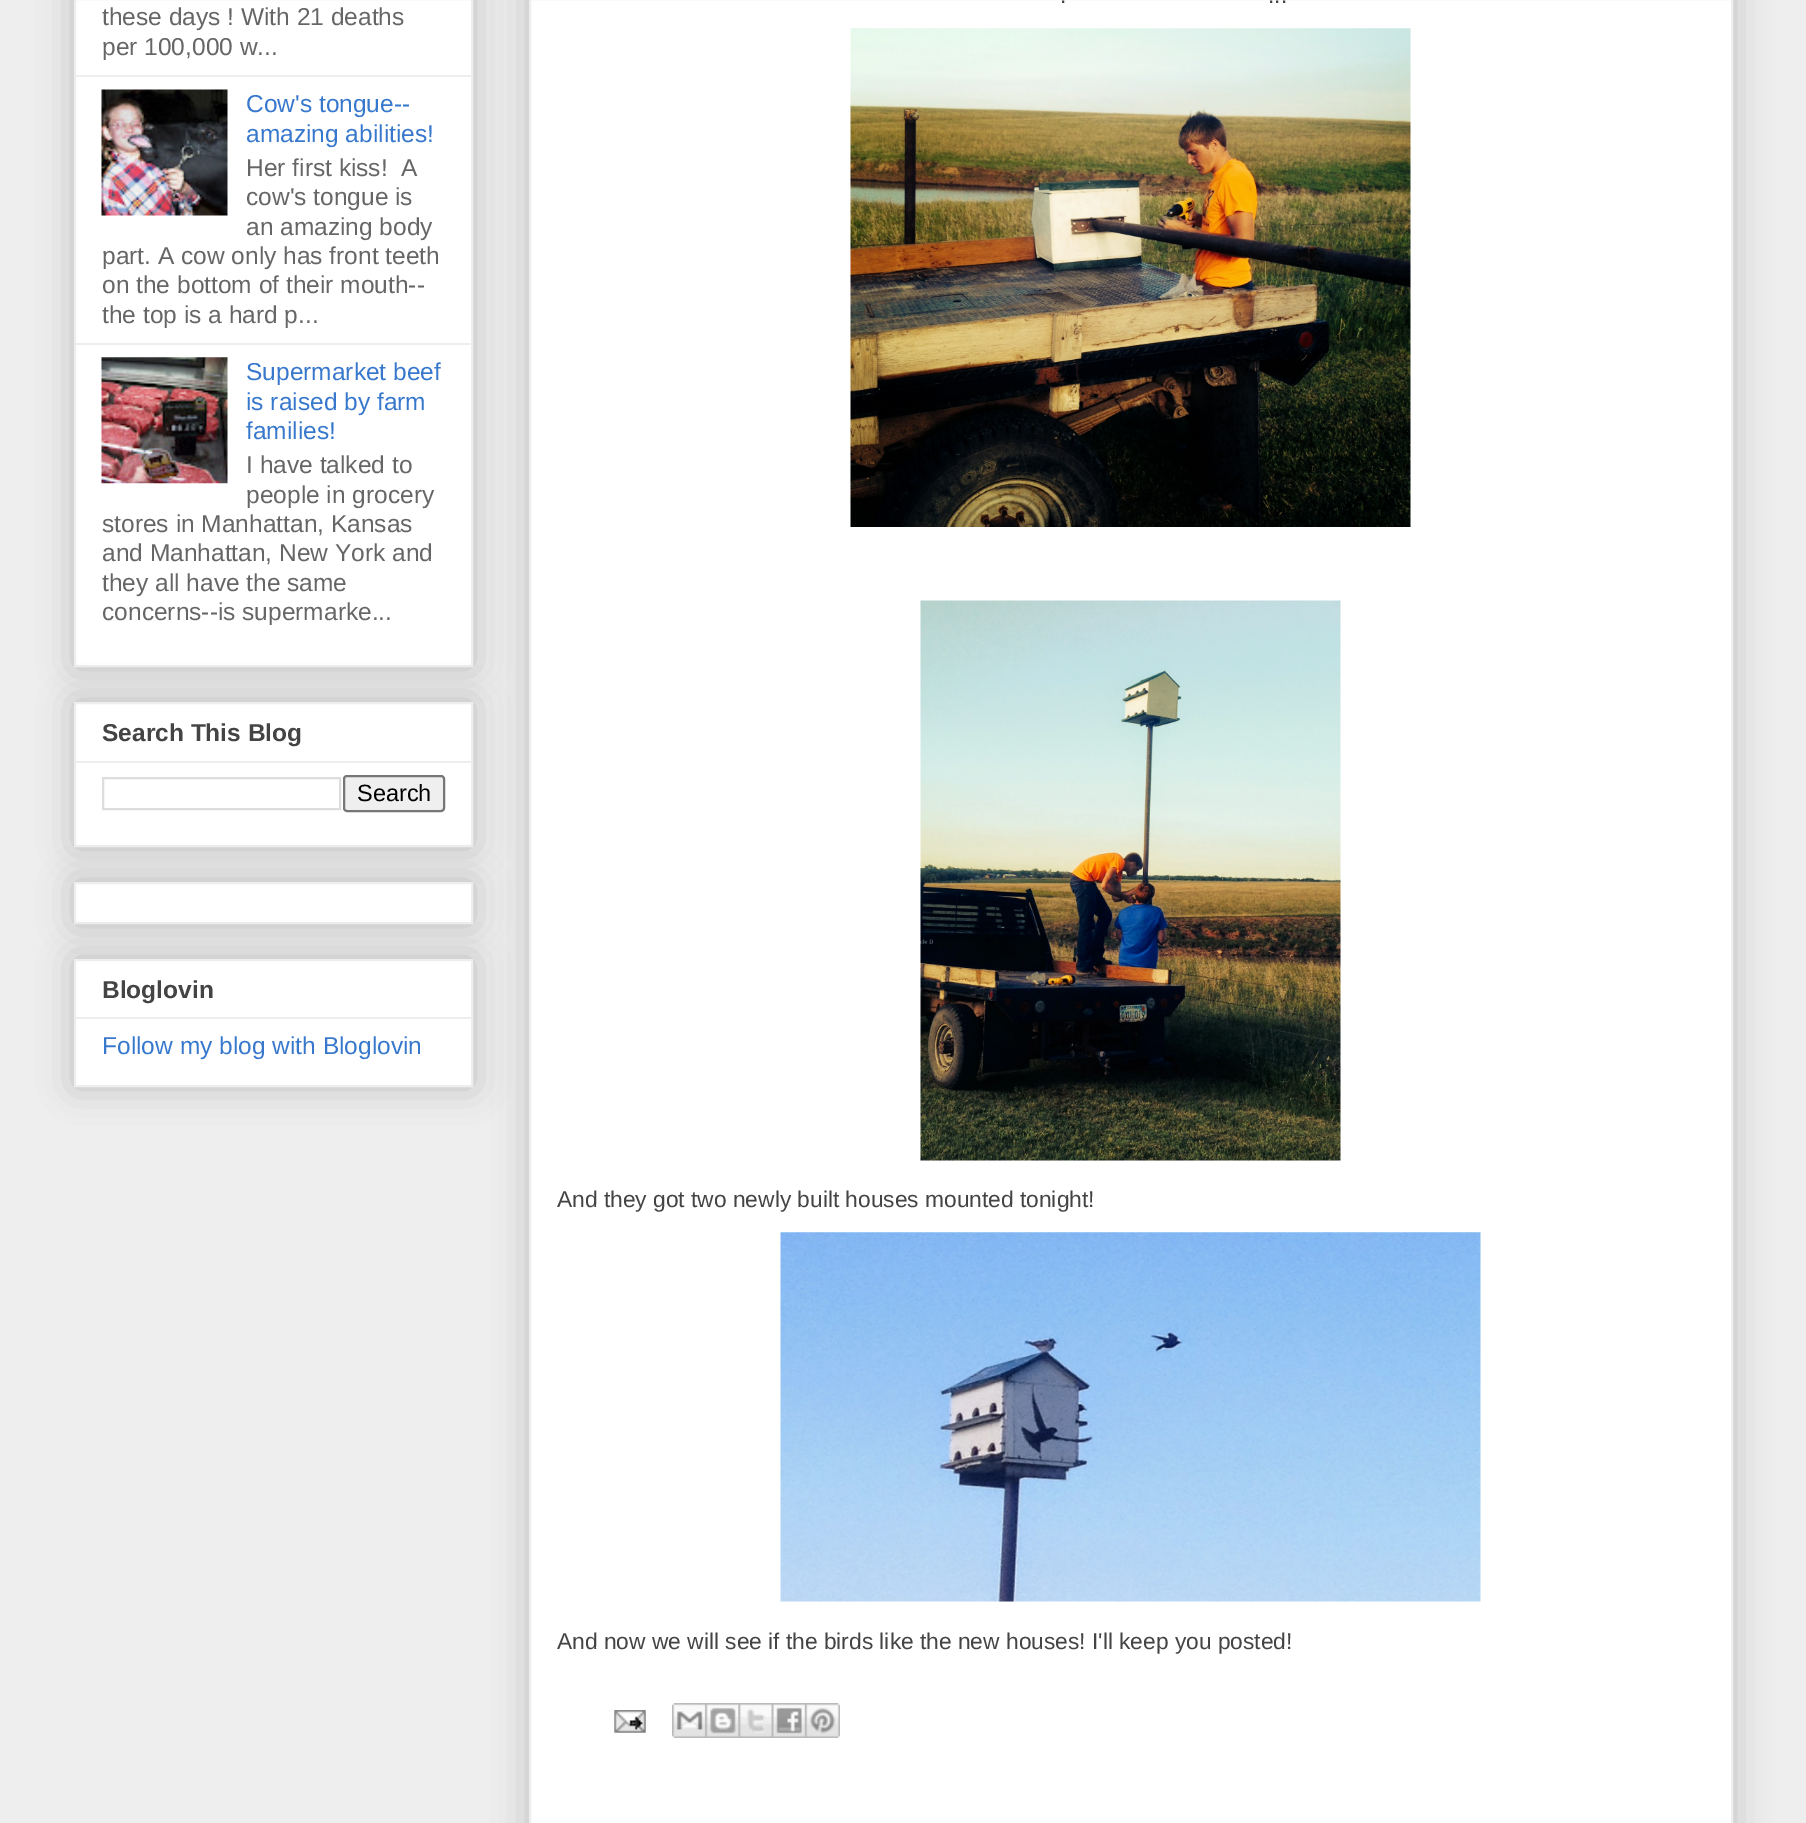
%!PS-Adobe-3.0
%%BoundingBox: 0 0 1806 1823
%%LanguageLevel: 3
%%Pages: 1
%%EndComments
%%BeginProlog
/setink { 3 { 255 div 3 1 roll } repeat setrgbcolor } def
/usefont { [ exch dup neg 0 0 3 -1 roll 0 0 ] selectfont } def
/drawtext { setink usefont moveto show } def
/fillbox { setink rectfill } def
/setalpha { dup .setfillconstantalpha .setstrokeconstantalpha } def
/rrect { 5 dict begin { /r /h /w /y /x } { exch def } forall
  x r add y moveto x w add y 2 copy h add r arct x w add y h add x 1 index r arct
  x y h add x y r arct x y 2 copy exch w add exch r arct closepath end } def
/softshadow { 12 dict begin { /a /b /q /h /w /y /x } { exch def } forall gsave /was 0 def
  9 -2 -9 { dup b mul 4 div /e exch def 1 sub .425 mul 2.718 exch exp 1 add a .99 .min exch div /now exch def
    1 1 now sub 1 was sub div sub setalpha /was now def
    w h .min e 2 mul add 0 gt { x e sub y e sub w e 2 mul add h e 2 mul add
      q e add b .6 mul add w h .min 2 div e add .min 0 .max rrect fill } if } for grestore end } def
/drawimage { 5 dict begin { /h /w /y /x /name } { exch def } forall
  gsave x y translate w h scale
  w h 8 [w 0 0 h 0 0] name (r) file false 3 colorimage grestore end } def
%%EndProlog
%%BeginSetup
<< /PageSize [1806 1823] /PageUsesTransparency true >> setpagedevice
%%EndSetup
%%Page: 1 1
0 .pushpdf14devicefilter
0 1823 translate 1 -1 scale
4 setmiterlimit
0 0 1806 1823 238 238 238 fillbox
0 0 0 setink
74 -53 399 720 0 17.5 0.2 softshadow
255 255 255 setink
75 -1 moveto 472 -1 lineto 472 666 lineto 75 666 lineto closepath gsave fill grestore
238 238 238 setink
2 setlinewidth
stroke
(these days ! With 21 deaths) 102 25 /LiberationSans-Regular 24.5 102 102 102 drawtext
(per 100,000 w...) 102 55 /LiberationSans-Regular 24.5 102 102 102 drawtext
75 75 396 2 238 238 238 fillbox
(assets/img1.rgb) 101 89 127 127 drawimage
(Cow's tongue--) 246 112 /LiberationSans-Regular 24.5 55 120 205 drawtext
(amazing abilities!) 246 142 /LiberationSans-Regular 24.5 55 120 205 drawtext
(Her first kiss!) 246 176 /LiberationSans-Regular 24.5 102 102 102 drawtext
(A) 401 176 /LiberationSans-Regular 24.5 102 102 102 drawtext
(cow's tongue is) 246 205 /LiberationSans-Regular 24.5 102 102 102 drawtext
(an amazing body) 246 235 /LiberationSans-Regular 24.5 102 102 102 drawtext
(part. A cow only has front teeth) 102 264 /LiberationSans-Regular 24.5 102 102 102 drawtext
(on the bottom of their mouth--) 102 293 /LiberationSans-Regular 24.5 102 102 102 drawtext
(the top is a hard p...) 102 323 /LiberationSans-Regular 24.5 102 102 102 drawtext
75 343 396 2 238 238 238 fillbox
(assets/img2.rgb) 101 357 127 127 drawimage
(Supermarket beef) 246 380 /LiberationSans-Regular 24.5 55 120 205 drawtext
(is raised by farm) 246 410 /LiberationSans-Regular 24.5 55 120 205 drawtext
(families!) 246 439 /LiberationSans-Regular 24.5 55 120 205 drawtext
(I have talked to) 246 473 /LiberationSans-Regular 24.5 102 102 102 drawtext
(people in grocery) 246 503 /LiberationSans-Regular 24.5 102 102 102 drawtext
(stores in Manhattan, Kansas) 102 532 /LiberationSans-Regular 24.5 102 102 102 drawtext
(and Manhattan, New York and) 102 561 /LiberationSans-Regular 24.5 102 102 102 drawtext
(they all have the same) 102 591 /LiberationSans-Regular 24.5 102 102 102 drawtext
(concerns--is supermarke...) 102 620 /LiberationSans-Regular 24.5 102 102 102 drawtext
0 0 0 setink
74 702 399 145 0 17.5 0.2 softshadow
255 255 255 setink
75 703 moveto 472 703 lineto 472 846 lineto 75 846 lineto closepath gsave fill grestore
238 238 238 setink
stroke
(Search This Blog) 102 741 /LiberationSans-Bold 24.5 68 68 68 drawtext
75 761 396 2 238 238 238 fillbox
221 221 221 setink
103 778 237 31 rectstroke
239 239 239 setink
344 776 100 35 3 rrect gsave fill grestore
118 118 118 setink
stroke
(Search) 357 801 /LiberationSans-Regular 23.5 0 0 0 drawtext
74 882 399 42 0 17.5 0.2 softshadow
255 255 255 setink
75 883 moveto 472 883 lineto 472 923 lineto 75 923 lineto closepath gsave fill grestore
238 238 238 setink
stroke
0 0 0 setink
74 959 399 128 0 17.5 0.2 softshadow
255 255 255 setink
75 960 moveto 472 960 lineto 472 1086 lineto 75 1086 lineto closepath gsave fill grestore
238 238 238 setink
stroke
(Bloglovin) 102 998 /LiberationSans-Bold 24.5 68 68 68 drawtext
75 1017 396 2 238 238 238 fillbox
(Follow my blog with Bloglovin) 102 1054 /LiberationSans-Regular 24.5 55 120 205 drawtext
0 0 0 setink
529 -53 1204 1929 0 17.5 0.2 softshadow
255 255 255 setink
530 -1 moveto 1732 -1 lineto 1732 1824 lineto 530 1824 lineto closepath gsave fill grestore
238 238 238 setink
stroke
(.) 1060 3 /LiberationSans-Regular 22.75 68 68 68 drawtext
(...) 1268 3 /LiberationSans-Regular 22.75 68 68 68 drawtext
(assets/img3.rgb) 850 28 561 499 drawimage
(assets/img4.rgb) 920 600 421 561 drawimage
(And they got two newly built houses mounted tonight!) 557 1207 /LiberationSans-Regular 22.75 68 68 68 drawtext
(assets/img5.rgb) 780 1232 701 370 drawimage
(And now we will see if the birds like the new houses! I'll keep you posted!) 557 1649 /LiberationSans-Regular 22.75 68 68 68 drawtext
(assets/img6.rgb) 614 1710 32 23 drawimage
(assets/img7.rgb) 672 1703 34 35 drawimage
(assets/img8.rgb) 705 1703 34 35 drawimage
(assets/img9.rgb) 738 1703 34 35 drawimage
(assets/img10.rgb) 771 1703 34 35 drawimage
(assets/img11.rgb) 805 1703 35 35 drawimage
.poppdf14devicefilter showpage
%%EOF
